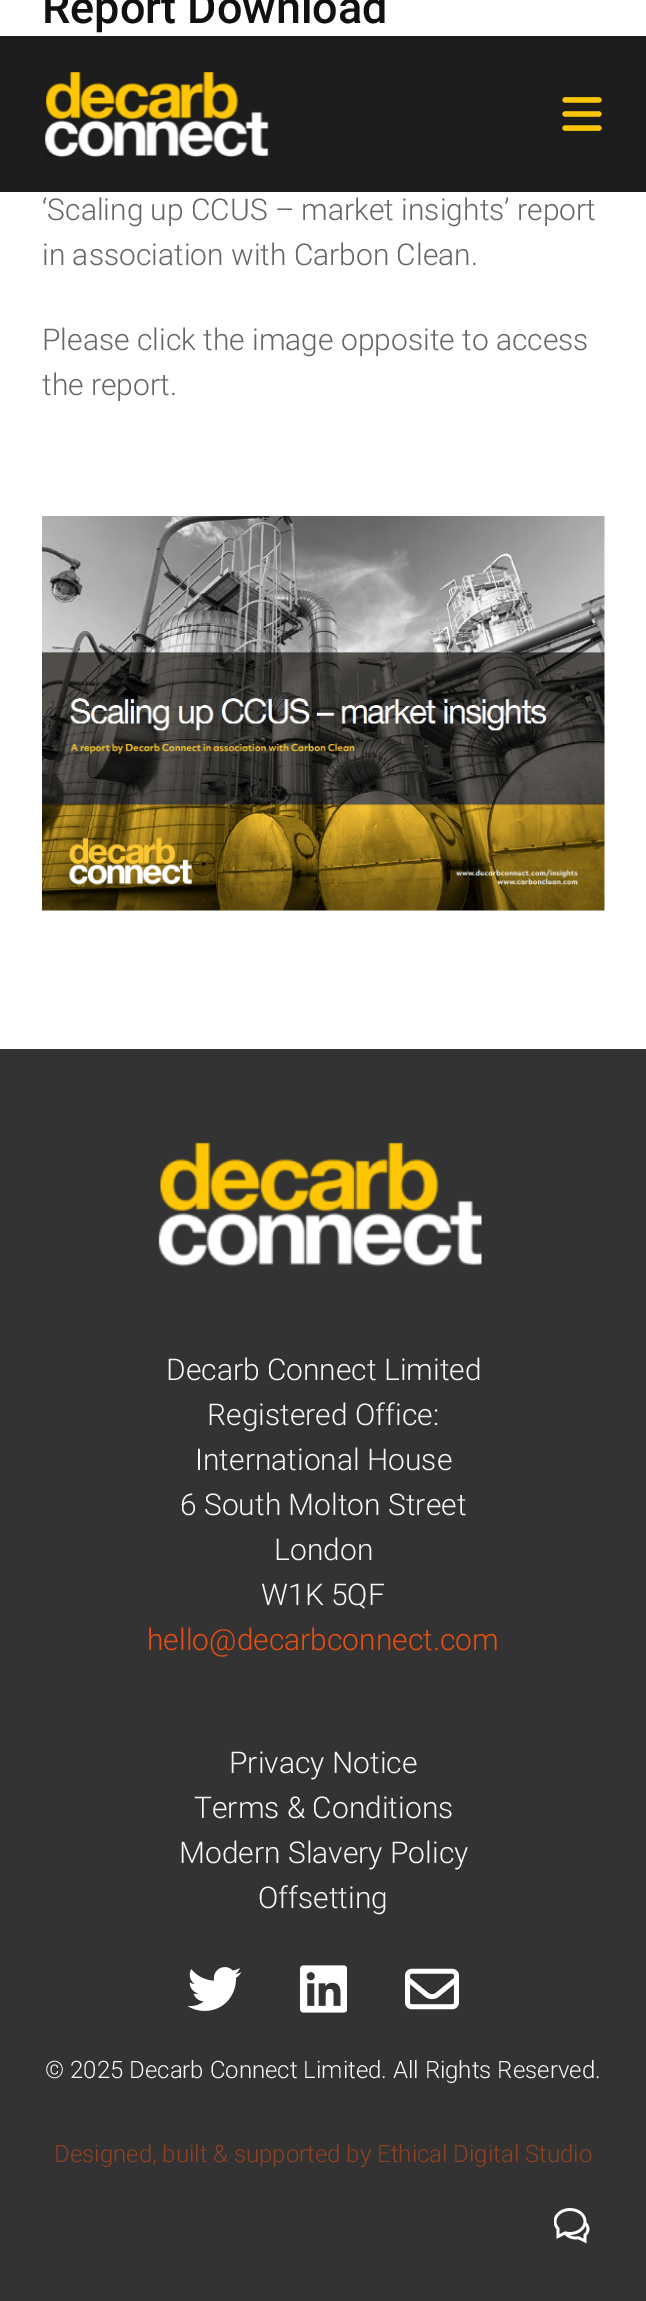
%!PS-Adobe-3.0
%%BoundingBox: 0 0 646 2301
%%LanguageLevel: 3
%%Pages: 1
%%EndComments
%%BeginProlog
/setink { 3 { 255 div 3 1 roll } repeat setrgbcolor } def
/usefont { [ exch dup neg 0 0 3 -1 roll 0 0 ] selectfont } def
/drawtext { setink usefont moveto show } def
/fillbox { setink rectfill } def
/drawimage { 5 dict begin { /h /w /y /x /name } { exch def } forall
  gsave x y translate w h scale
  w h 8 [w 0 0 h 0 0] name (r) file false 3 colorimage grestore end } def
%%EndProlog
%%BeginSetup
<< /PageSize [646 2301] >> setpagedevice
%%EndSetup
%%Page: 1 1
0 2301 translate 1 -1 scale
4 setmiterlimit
0 0 646 2301 255 255 255 fillbox
0 36 646 156 29 29 29 fillbox
(Report Download) 42 23 /Roboto-Medium 45 17 17 17 drawtext
(‘Scaling up CCUS – market insights’ report) 42 220 /Roboto-Light 30 102 102 102 drawtext
(in association with Carbon Clean.) 42 265 /Roboto-Light 30 102 102 102 drawtext
(Please click the image opposite to access) 42 350 /Roboto-Light 30 102 102 102 drawtext
(the report.) 42 395 /Roboto-Light 30 102 102 102 drawtext
(assets/img1.rgb) 42 516 563 395 drawimage
(assets/img2.rgb) 45 72 224 85 drawimage
(assets/img3.rgb) 562 97 40 34 drawimage
0 1049 646 1252 51 51 51 fillbox
(assets/img4.rgb) 158 1142 324 125 drawimage
(Decarb Connect Limited) 166 1380 /Roboto-Light 30 247 247 247 drawtext
(Registered Office:) 207 1425 /Roboto-Light 30 247 247 247 drawtext
(International House) 195 1470 /Roboto-Light 30 247 247 247 drawtext
(6 South Molton Street) 180 1515 /Roboto-Light 30 247 247 247 drawtext
(London) 274 1560 /Roboto-Light 30 247 247 247 drawtext
(W1K 5QF) 261 1605 /Roboto-Light 30 247 247 247 drawtext
(hello@decarbconnect.com) 147 1650 /Roboto-Light 30 232 79 19 drawtext
(Privacy Notice) 229 1773 /Roboto-Light 30 247 247 247 drawtext
(Terms & Conditions) 194 1818 /Roboto-Light 30 247 247 247 drawtext
(Modern Slavery Policy) 179 1863 /Roboto-Light 30 247 247 247 drawtext
(Offsetting) 258 1908 /Roboto-Light 30 247 247 247 drawtext
(assets/img5.rgb) 188 1967 54 44 drawimage
(assets/img6.rgb) 300 1965 47 48 drawimage
(assets/img7.rgb) 405 1968 54 42 drawimage
(© 2025 Decarb Connect Limited. All Rights Reserved.) 45 2078 /Roboto-Light 24 247 247 247 drawtext
(Designed, built & supported by Ethical Digital Studio) 54 2162 /Roboto-Light 24 142 65 35 drawtext
(assets/img8.rgb) 554 2208 36 36 drawimage
showpage
%%EOF
